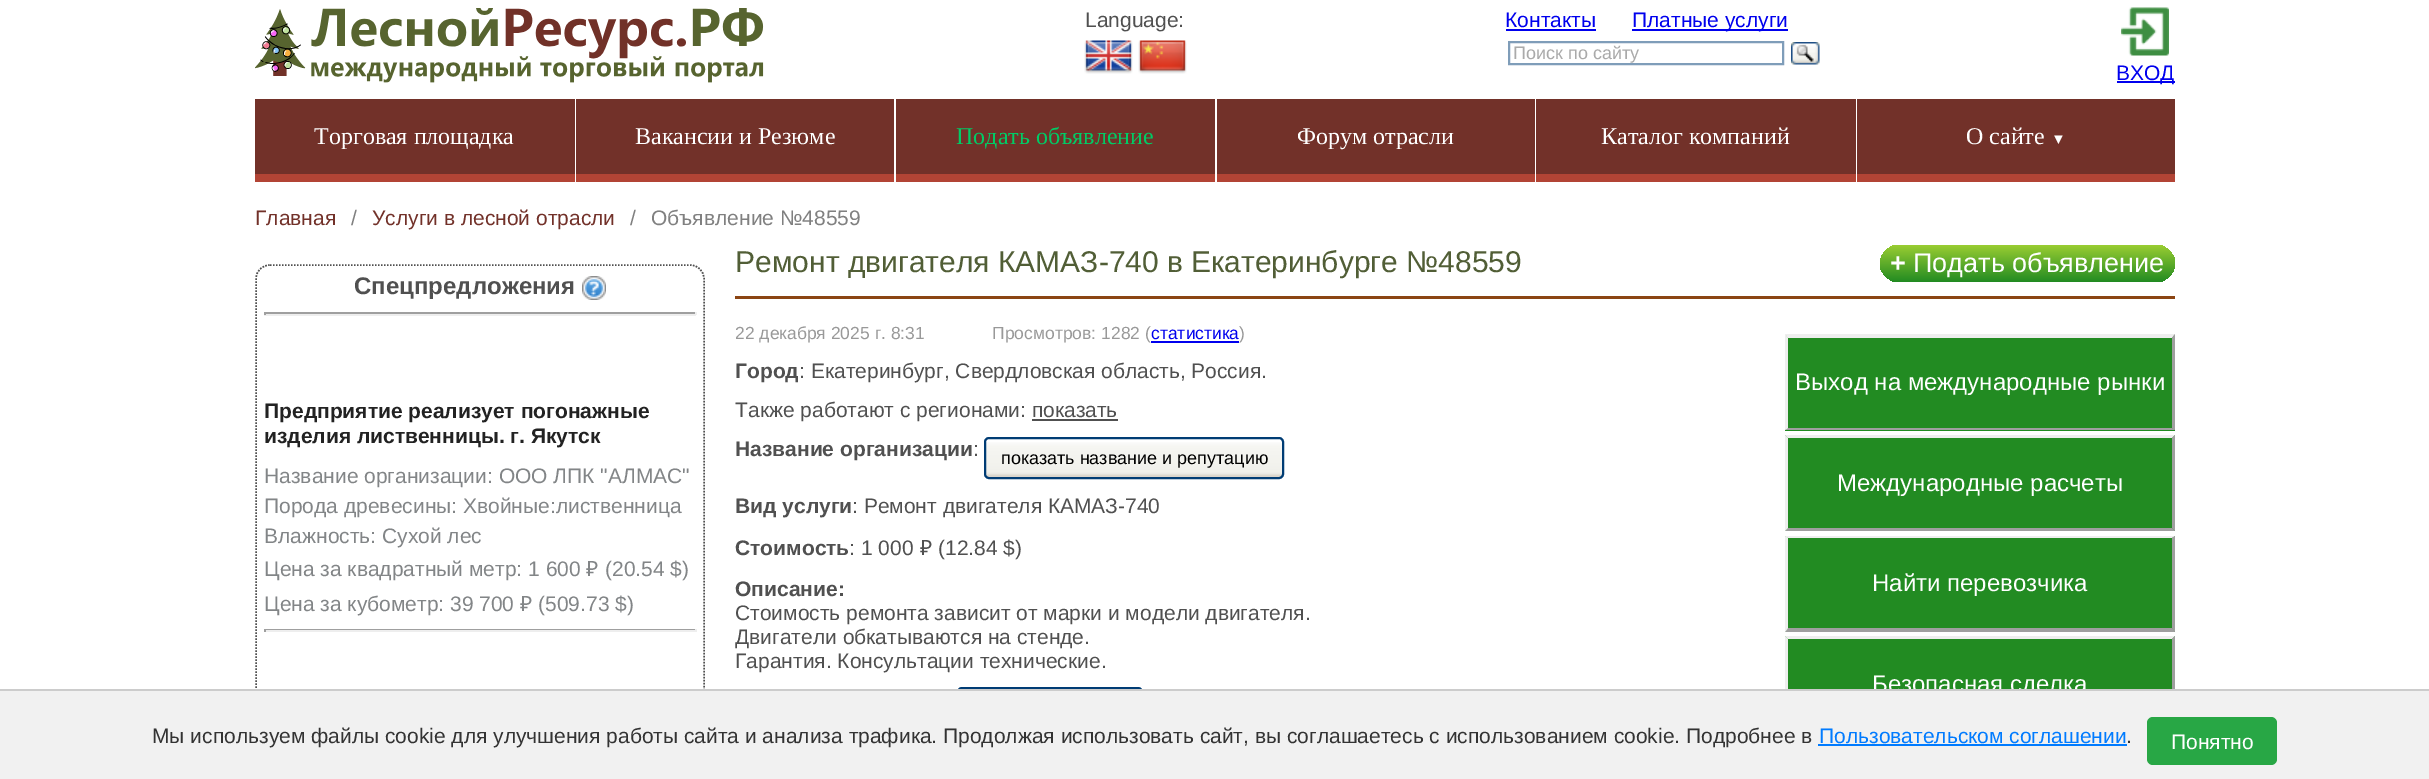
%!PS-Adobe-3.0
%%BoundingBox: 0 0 2429 779
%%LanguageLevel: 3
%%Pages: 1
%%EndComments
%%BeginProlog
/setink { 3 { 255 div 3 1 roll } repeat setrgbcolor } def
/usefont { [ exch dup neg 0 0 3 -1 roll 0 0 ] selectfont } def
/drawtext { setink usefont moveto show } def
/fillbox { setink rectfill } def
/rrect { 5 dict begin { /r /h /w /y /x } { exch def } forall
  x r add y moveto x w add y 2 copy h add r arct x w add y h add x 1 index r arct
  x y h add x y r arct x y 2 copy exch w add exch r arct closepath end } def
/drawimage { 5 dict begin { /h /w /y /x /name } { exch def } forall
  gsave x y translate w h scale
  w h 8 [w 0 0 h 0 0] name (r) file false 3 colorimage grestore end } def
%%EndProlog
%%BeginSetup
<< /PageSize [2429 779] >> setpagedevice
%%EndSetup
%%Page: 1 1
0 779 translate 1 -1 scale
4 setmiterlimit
0 0 2429 779 255 255 255 fillbox
(assets/img1.rgb) 255 8 509 75 drawimage
(Language:) 1085 27 /LiberationSans-Regular 21 80 80 80 drawtext
(assets/img2.rgb) 1084 40 49 34 drawimage
(assets/img3.rgb) 1138 40 49 34 drawimage
(Контакты) 1505 27 /LiberationSans-Regular 21 0 0 238 drawtext
1506 29 90 2 0 0 238 fillbox
1632 29 156 2 0 0 238 fillbox
(Платные услуги) 1632 27 /LiberationSans-Regular 21 0 0 238 drawtext
127 157 185 setink
2 setlinewidth
1509 42 274 22 rectstroke
(Поиск по сайту) 1513 59 /LiberationSans-Regular 18 170 170 170 drawtext
(assets/img4.rgb) 1791 42 29 23 drawimage
(assets/img5.rgb) 2121 7 48 49 drawimage
2117 81 58 2 0 0 238 fillbox
(ВХОД) 2116 80 /LiberationSans-Regular 21 0 0 238 drawtext
255 99 320 75 114 49 41 fillbox
255 174 320 8 178 68 53 fillbox
(Торговая площадка) 314 144 /LiberationSerif-Regular 24 255 255 255 drawtext
576 99 318 75 114 49 41 fillbox
576 174 318 8 178 68 53 fillbox
(Вакансии и Резюме) 635 144 /LiberationSerif-Regular 24 255 255 255 drawtext
896 99 319 75 114 49 41 fillbox
896 174 319 8 178 68 53 fillbox
(Подать объявление) 956 144 /LiberationSerif-Regular 24 0 204 102 drawtext
1217 99 318 75 114 49 41 fillbox
1217 174 318 8 178 68 53 fillbox
(Форум отрасли) 1297 144 /LiberationSerif-Regular 24 255 255 255 drawtext
1536 99 320 75 114 49 41 fillbox
1536 174 320 8 178 68 53 fillbox
(Каталог компаний) 1601 144 /LiberationSerif-Regular 24 255 255 255 drawtext
1857 99 318 75 114 49 41 fillbox
1857 174 318 8 178 68 53 fillbox
(О сайте) 1966 144 /LiberationSerif-Regular 24 255 255 255 drawtext
(▼) 2051 144 /LiberationSerif-Regular 15 255 255 255 drawtext
(Главная) 255 225 /LiberationSans-Regular 21 114 49 41 drawtext
(/) 351 225 /LiberationSans-Regular 21 128 128 128 drawtext
(Услуги в лесной отрасли) 372 225 /LiberationSans-Regular 21 114 49 41 drawtext
(/) 630 225 /LiberationSans-Regular 21 128 128 128 drawtext
(Объявление №48559) 651 225 /LiberationSans-Regular 21 128 128 128 drawtext
80 80 80 setink
1.5 setlinewidth
[1.5 1.5] 0 setdash
270 265 moveto 690 265 lineto 698 265 704 271 704 279 curveto 704 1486.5 lineto 704 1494.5 698 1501 690 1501 curveto 270 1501 lineto 262 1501 256 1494.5 256 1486.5 curveto 256 279 lineto 256 271 262 265 270 265 curveto closepath stroke
(Спецпредложения) 354 294 /LiberationSans-Bold 24 80 80 80 drawtext
(assets/img6.rgb) 582 276 24 24 drawimage
264 312 432 2 159 159 159 fillbox
695 312 2 3 238 238 238 fillbox
264 314 432 2 238 238 238 fillbox
264 312 2 3 159 159 159 fillbox
(Предприятие реализует погонажные) 264 418 /LiberationSans-Bold 21 34 34 34 drawtext
(изделия лиственницы. г. Якутск) 264 443 /LiberationSans-Bold 21 34 34 34 drawtext
(Название организации: ООО ЛПК "АЛМАС") 264 483 /LiberationSans-Regular 21 130 133 135 drawtext
(Порода древесины: Хвойные:лиственница) 264 513 /LiberationSans-Regular 21 130 133 135 drawtext
(Влажность: Сухой лес) 264 543 /LiberationSans-Regular 21 130 133 135 drawtext
(Цена за квадратный метр: 1 600) 264 576 /LiberationSans-Regular 21 130 133 135 drawtext
(₽) 586 576 /NotoSans-Regular 21 130 133 135 drawtext
(\(20.54 $\)) 605 576 /LiberationSans-Regular 21 130 133 135 drawtext
(Цена за кубометр: 39 700) 264 611 /LiberationSans-Regular 21 130 133 135 drawtext
(₽) 520 611 /NotoSans-Regular 21 130 133 135 drawtext
(\(509.73 $\)) 538 611 /LiberationSans-Regular 21 130 133 135 drawtext
264 629 432 1 159 159 159 fillbox
695 629 2 3 238 238 238 fillbox
264 630 432 2 238 238 238 fillbox
264 629 2 3 159 159 159 fillbox
735 296 1440 3 139 69 19 fillbox
(Ремонт двигателя КАМАЗ-740 в Екатеринбурге №48559) 735 272 /LiberationSans-Regular 30 81 94 54 drawtext
gsave 1880 245 295 37 18.5 rrect clip newpath
<< /ShadingType 2 /ColorSpace /DeviceRGB /Coords [2027 245 2027 282] /Extend [true true] /Function << /FunctionType 2 /Domain [0 1] /C0 [0.604 0.804 0.196] /C1 [0.133 0.545 0.133] /N 1 >> >> shfill grestore
(+) 1890 272 /LiberationSans-Bold 27 255 255 255 drawtext
(Подать объявление) 1913 272 /LiberationSans-Regular 27 255 255 255 drawtext
(22 декабря 2025 г. 8:31) 735 339 /LiberationSans-Regular 17.5 153 153 153 drawtext
(Просмотров: 1282 \() 992 339 /LiberationSans-Regular 17.5 153 153 153 drawtext
1151 341 88 2 0 0 238 fillbox
(статистика) 1151 339 /LiberationSans-Regular 17.5 0 0 238 drawtext
(\)) 1239 339 /LiberationSans-Regular 17.5 153 153 153 drawtext
(Город) 735 378 /LiberationSans-Bold 21 80 80 80 drawtext
(: Екатеринбург, Свердловская область, Россия.) 799 378 /LiberationSans-Regular 21 80 80 80 drawtext
(Также работают с регионами: показать) 735 417 /LiberationSans-Regular 21 80 80 80 drawtext
1032 419 86 2 80 80 80 fillbox
(Название организации) 735 456 /LiberationSans-Bold 21 80 80 80 drawtext
(:) 973 456 /LiberationSans-Regular 21 80 80 80 drawtext
(assets/img7.rgb) 985 442 299 36 drawimage
0 60 116 setink
2 setlinewidth
[] 0 setdash
985 438 298 40 4 rrect stroke
(показать название и репутацию) 1001 464 /LiberationSans-Regular 18 0 0 0 drawtext
(Вид услуги) 735 513 /LiberationSans-Bold 21 80 80 80 drawtext
(: Ремонт двигателя КАМАЗ-740) 852 513 /LiberationSans-Regular 21 80 80 80 drawtext
(Стоимость) 735 555 /LiberationSans-Bold 21 80 80 80 drawtext
(: 1 000) 849 555 /LiberationSans-Regular 21 80 80 80 drawtext
(₽) 920 555 /NotoSans-Regular 21 80 80 80 drawtext
(\(12.84 $\)) 938 555 /LiberationSans-Regular 21 80 80 80 drawtext
(Описание:) 735 596 /LiberationSans-Bold 21 80 80 80 drawtext
(Стоимость ремонта зависит от марки и модели двигателя.) 735 620 /LiberationSans-Regular 21 80 80 80 drawtext
(Двигатели обкатываются на стенде.) 735 644 /LiberationSans-Regular 21 80 80 80 drawtext
(Гарантия. Консультации технические.) 735 668 /LiberationSans-Regular 21 80 80 80 drawtext
0 60 116 setink
958 688 184 40 4 rrect stroke
1785 335 390 96 34 139 34 fillbox
238 238 238 setink
1785 334 moveto 2175 334 lineto 2172 338 lineto 1788 338 lineto closepath fill
159 159 159 setink
2175 334 moveto 2175 430 lineto 2172 428 lineto 2172 338 lineto closepath fill
2175 430 moveto 1785 430 lineto 1788 428 lineto 2172 428 lineto closepath fill
238 238 238 setink
1785 430 moveto 1785 334 lineto 1788 338 lineto 1788 428 lineto closepath fill
(Выход на международные рынки) 1795 390 /LiberationSans-Regular 24 255 255 255 drawtext
1785 435 390 96 34 139 34 fillbox
238 238 238 setink
1785 435 moveto 2175 435 lineto 2172 438 lineto 1788 438 lineto closepath fill
159 159 159 setink
2175 435 moveto 2175 531 lineto 2172 528 lineto 2172 438 lineto closepath fill
2175 531 moveto 1785 531 lineto 1788 528 lineto 2172 528 lineto closepath fill
238 238 238 setink
1785 531 moveto 1785 435 lineto 1788 438 lineto 1788 528 lineto closepath fill
(Международные расчеты) 1837 491 /LiberationSans-Regular 24 255 255 255 drawtext
1785 536 390 96 34 139 34 fillbox
238 238 238 setink
1785 536 moveto 2175 536 lineto 2172 538 lineto 1788 538 lineto closepath fill
159 159 159 setink
2175 536 moveto 2175 632 lineto 2172 628 lineto 2172 538 lineto closepath fill
2175 632 moveto 1785 632 lineto 1788 628 lineto 2172 628 lineto closepath fill
238 238 238 setink
1785 632 moveto 1785 536 lineto 1788 538 lineto 1788 628 lineto closepath fill
(Найти перевозчика) 1872 591 /LiberationSans-Regular 24 255 255 255 drawtext
1785 636 390 53 34 139 34 fillbox
238 238 238 setink
1785 636 moveto 2175 636 lineto 2172 639 lineto 1788 639 lineto closepath fill
159 159 159 setink
2175 636 moveto 2175 732 lineto 2172 729 lineto 2172 639 lineto closepath fill
238 238 238 setink
1785 732 moveto 1785 636 lineto 1788 639 lineto 1788 729 lineto closepath fill
(Безопасная сделка) 1872 692 /LiberationSans-Regular 24 255 255 255 drawtext
0 691 2429 88 241 241 241 fillbox
0 689 2429 2 204 204 204 fillbox
(Мы используем файлы cookie для улучшения работы сайта и анализа трафика. Продолжая использовать сайт, вы соглашаетесь с использованием cookie. Подробнее в) 152 743 /LiberationSans-Regular 21 51 51 51 drawtext
(Пользовательском соглашении) 1819 743 /LiberationSans-Regular 21 0 123 255 drawtext
1818 744 309 2 0 123 255 fillbox
(.) 2126 743 /LiberationSans-Regular 21 51 51 51 drawtext
40 167 69 setink
2147 717 130 48 6 rrect fill
(Понятно) 2171 749 /LiberationSans-Regular 21 255 255 255 drawtext
showpage
%%EOF
